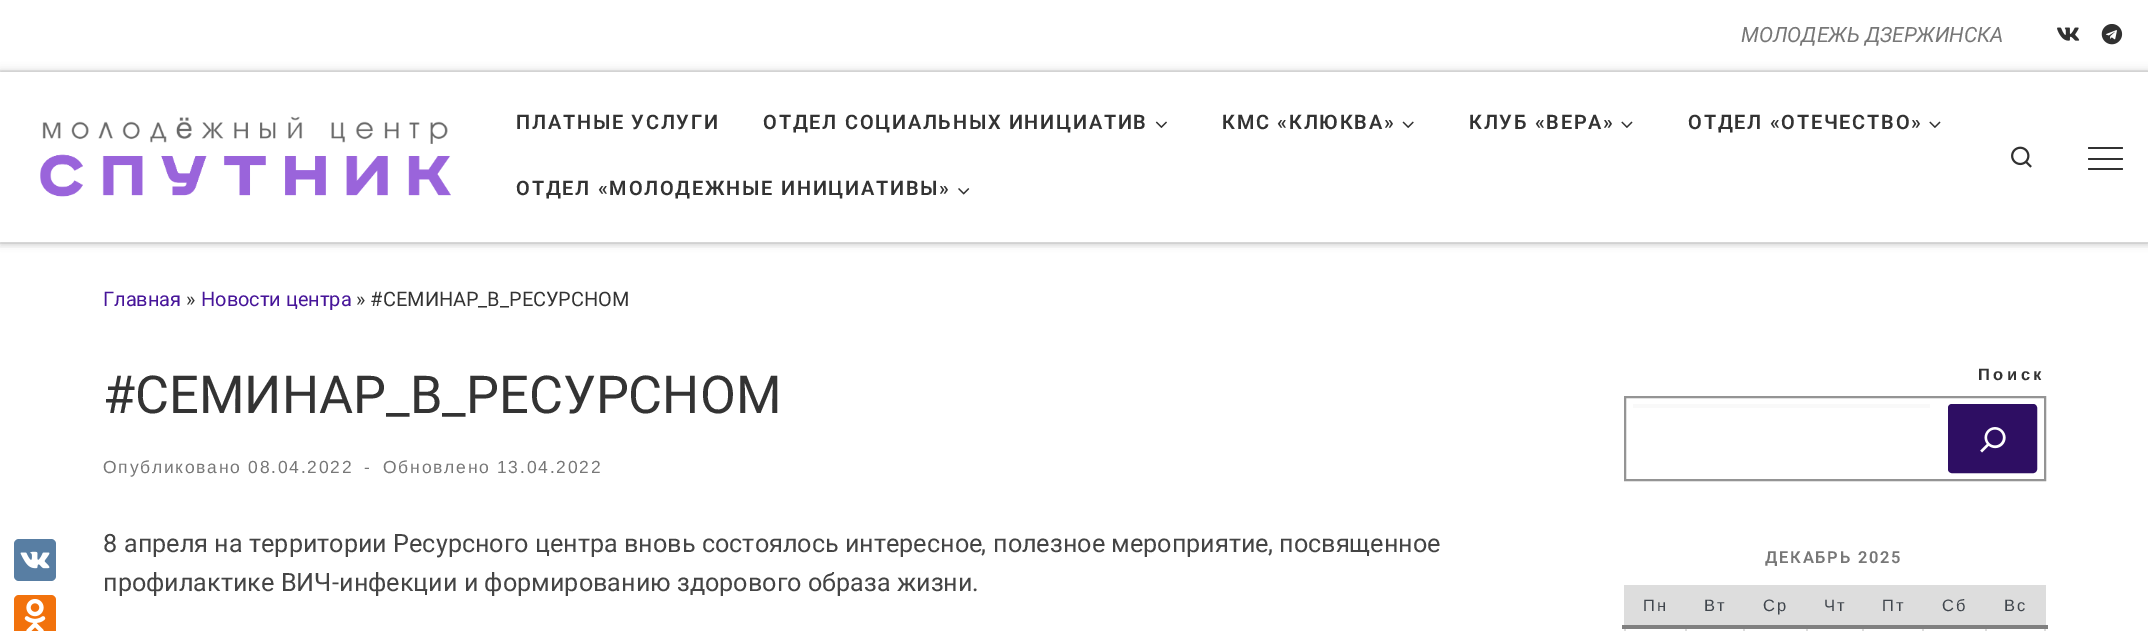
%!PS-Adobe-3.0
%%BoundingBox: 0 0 2148 631
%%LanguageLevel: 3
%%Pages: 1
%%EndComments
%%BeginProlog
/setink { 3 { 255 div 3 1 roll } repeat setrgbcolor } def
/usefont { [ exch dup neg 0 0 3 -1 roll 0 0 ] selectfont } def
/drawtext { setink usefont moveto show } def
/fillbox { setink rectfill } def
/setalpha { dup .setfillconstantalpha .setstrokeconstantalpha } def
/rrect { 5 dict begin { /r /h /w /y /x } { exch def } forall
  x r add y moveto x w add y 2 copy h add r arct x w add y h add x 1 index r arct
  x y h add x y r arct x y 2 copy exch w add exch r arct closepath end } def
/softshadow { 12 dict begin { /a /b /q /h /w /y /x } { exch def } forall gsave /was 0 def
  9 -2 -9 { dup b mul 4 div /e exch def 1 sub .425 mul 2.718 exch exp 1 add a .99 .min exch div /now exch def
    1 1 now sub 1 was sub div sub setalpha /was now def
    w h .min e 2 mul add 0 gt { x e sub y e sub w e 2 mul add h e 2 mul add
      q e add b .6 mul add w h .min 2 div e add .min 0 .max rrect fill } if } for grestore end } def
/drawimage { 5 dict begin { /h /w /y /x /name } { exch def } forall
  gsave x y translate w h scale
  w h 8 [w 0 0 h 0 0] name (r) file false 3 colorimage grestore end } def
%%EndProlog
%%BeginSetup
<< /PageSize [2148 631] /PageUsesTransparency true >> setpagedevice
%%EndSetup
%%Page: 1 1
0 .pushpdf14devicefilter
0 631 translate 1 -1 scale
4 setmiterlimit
0 0 2148 631 255 255 255 fillbox
88 126 163 setink
14 539 42 42 5 rrect fill
(assets/img1.rgb) 20 551 30 18 drawimage
242 114 12 setink
14 595 42 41 5 rrect fill
(assets/img2.rgb) 24 599 22 32 drawimage
gsave
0 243 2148 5 rectclip
102 102 102 setink
0 4 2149 243 0 2 0.08 softshadow
grestore
0.09 setalpha
0 243 2148 1 49 49 49 fillbox
1 setalpha
0 70 2148 2 236 236 236 fillbox
(МОЛОДЕЖЬ ДЗЕРЖИНСКА) 1741 42 /Roboto-Italic 21 119 119 119 drawtext
(assets/img3.rgb) 2057 27 23 14 drawimage
(assets/img4.rgb) 2101 24 22 21 drawimage
0 242 2148 1 239 239 239 fillbox
0 0 0 setink
0 72 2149 170 0 4.5 0.2 softshadow
0 72 2148 170 255 255 255 fillbox
(assets/img5.rgb) 40 116 411 81 drawimage
/Roboto-SemiBold 19.95 usefont
51 51 51 setink
516 129 moveto 1.75 0 (ПЛАТНЫЕ УСЛУГИ) ashow
763 129 moveto 1.75 0 (ОТДЕЛ СОЦИАЛЬНЫХ ИНИЦИАТИВ) ashow
(assets/img6.rgb) 1155 121 12 7 drawimage
1222 129 moveto 1.75 0 (КМС «КЛЮКВА») ashow
(assets/img7.rgb) 1402 121 12 7 drawimage
1469 129 moveto 1.75 0 (КЛУБ «ВЕРА») ashow
(assets/img8.rgb) 1621 121 12 7 drawimage
1688 129 moveto 1.75 0 (ОТДЕЛ «ОТЕЧЕСТВО») ashow
(assets/img8.rgb) 1929 121 12 7 drawimage
516 195 moveto 1.75 0 (ОТДЕЛ «МОЛОДЕЖНЫЕ ИНИЦИАТИВЫ») ashow
(assets/img9.rgb) 958 188 12 7 drawimage
(assets/img10.rgb) 2011 146 21 22 drawimage
49 49 49 setink
2088 147 35 2 1 rrect fill
2088 158 35 2 1 rrect fill
2088 168 35 2 1 rrect fill
(Главная) 103 306 /Roboto-Regular 19.95 71 21 153 drawtext
(») 186 306 /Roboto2-Regular 19.95 51 51 51 drawtext
(Новости центра) 201 306 /Roboto-Regular 19.95 71 21 153 drawtext
(» #) 356 306 /Roboto2-Regular 19.95 51 51 51 drawtext
(СЕМИНАР) 383 306 /Roboto-Regular 19.95 51 51 51 drawtext
(В) 487 306 /Roboto-Regular 19.95 51 51 51 drawtext
(РЕСУРСНОМ) 509 306 /Roboto-Regular 19.95 51 51 51 drawtext
(_) 478 306 /Roboto2-Regular 19.95 51 51 51 drawtext
(_) 500 306 /Roboto2-Regular 19.95 51 51 51 drawtext
(#) 103 413 /Roboto2-Regular 52.25 51 51 51 drawtext
(СЕМИНАР) 135 413 /Roboto-Regular 52.25 51 51 51 drawtext
(В) 410 413 /Roboto-Regular 52.25 51 51 51 drawtext
(РЕСУРСНОМ) 466 413 /Roboto-Regular 52.25 51 51 51 drawtext
(_) 386 413 /Roboto2-Regular 52.25 51 51 51 drawtext
(_) 442 413 /Roboto2-Regular 52.25 51 51 51 drawtext
/LiberationSans-Regular 17.5 usefont
119 119 119 setink
103 473 moveto 1.75 0 (Опубликовано 08.04.2022) ashow
364 473 moveto 1.75 0 (-) ashow
383 473 moveto 1.75 0 (Обновлено 13.04.2022) ashow
(8) 103 552 /Roboto2-Regular 25.2 68 68 68 drawtext
(апреля на территории Ресурсного центра вновь состоялось интересное) 124 552 /Roboto-Regular 25.2 68 68 68 drawtext
(,) 981 552 /Roboto2-Regular 25.2 68 68 68 drawtext
(полезное мероприятие) 993 552 /Roboto-Regular 25.2 68 68 68 drawtext
(,) 1268 552 /Roboto2-Regular 25.2 68 68 68 drawtext
(посвященное) 1279 552 /Roboto-Regular 25.2 68 68 68 drawtext
(профилактике ВИЧ) 103 591 /Roboto-Regular 25.2 68 68 68 drawtext
(-) 332 591 /Roboto2-Regular 25.2 68 68 68 drawtext
(инфекции и формированию здорового образа жизни) 339 591 /Roboto-Regular 25.2 68 68 68 drawtext
(.) 972 591 /Roboto2-Regular 25.2 68 68 68 drawtext
/LiberationSans-Bold 16.5 usefont
51 51 51 setink
1978 380 moveto 3.5 0 (Поиск) ashow
148 148 148 setink
2 setlinewidth
1625 397 420 83 rectstroke
1633 404 297 4 249 249 249 fillbox
46 14 99 setink
1950 406 85 65 2 rrect gsave fill grestore
4 setlinewidth
stroke
(assets/img11.rgb) 1980 427 26 26 drawimage
/Roboto-SemiBold 16.5 usefont
119 119 119 setink
1765 563 moveto 1.75 0 (ДЕКАБРЬ 2025) ashow
1624 627 2 4 221 221 221 fillbox
1685 627 2 4 221 221 221 fillbox
1743 627 2 4 221 221 221 fillbox
1806 627 2 4 221 221 221 fillbox
1862 627 2 4 221 221 221 fillbox
1922 627 2 4 221 221 221 fillbox
2044 627 2 4 221 221 221 fillbox
1985 627 2 4 221 221 221 fillbox
1622 625 426 4 128 128 128 fillbox
1624 585 422 40 221 221 221 fillbox
/LiberationSans-Regular 16.5 usefont
64 70 77 setink
1643 611 moveto 1.75 0 (Пн) ashow
1704 611 moveto 1.75 0 (Вт) ashow
1763 611 moveto 1.75 0 (Ср) ashow
1824 611 moveto 1.75 0 (Чт) ashow
1882 611 moveto 1.75 0 (Пт) ashow
1942 611 moveto 1.75 0 (Сб) ashow
2004 611 moveto 1.75 0 (Вс) ashow
.poppdf14devicefilter showpage
%%EOF
